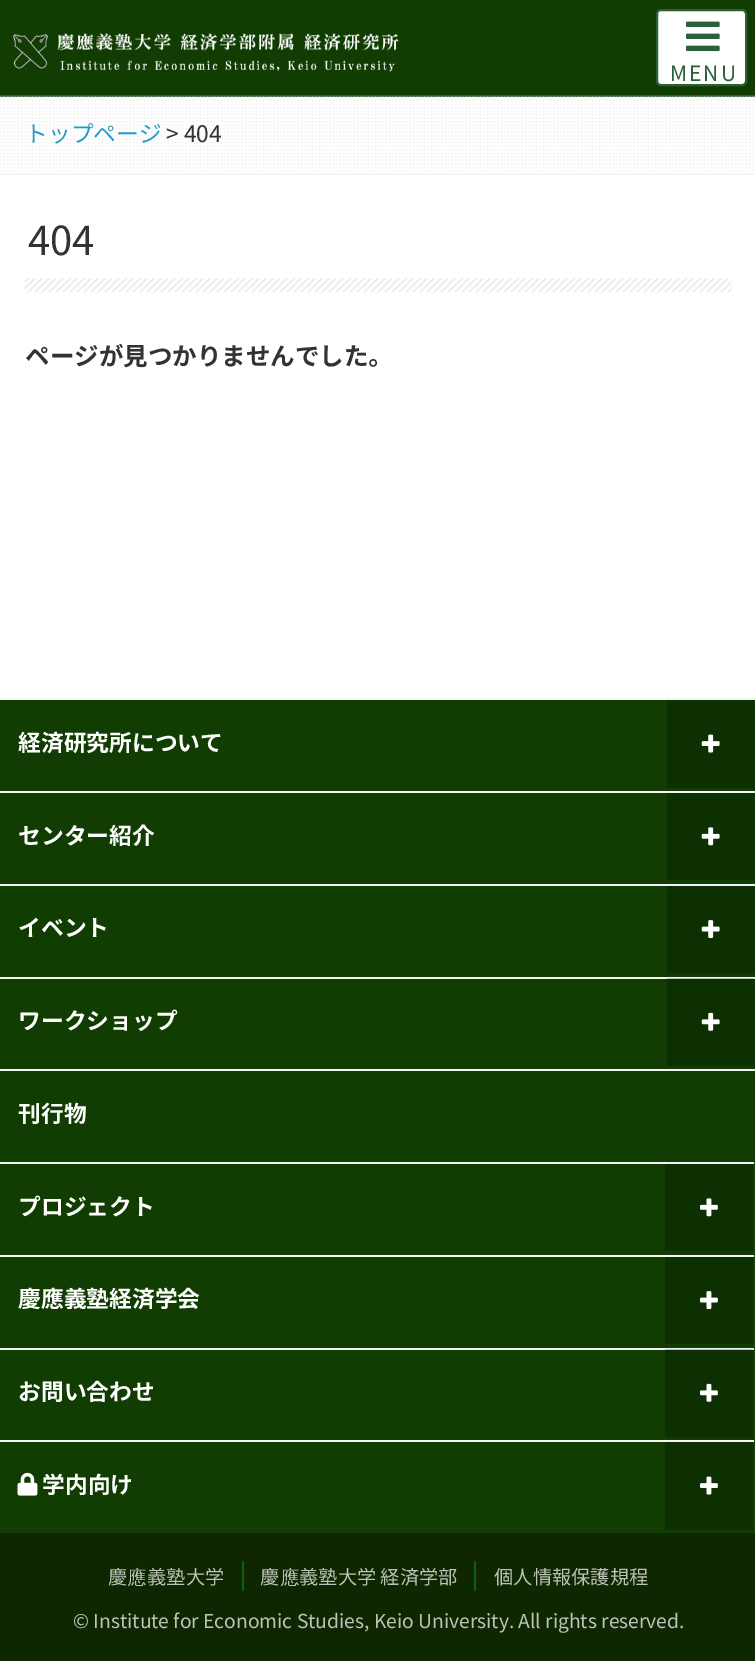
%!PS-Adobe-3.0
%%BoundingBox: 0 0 755 1661
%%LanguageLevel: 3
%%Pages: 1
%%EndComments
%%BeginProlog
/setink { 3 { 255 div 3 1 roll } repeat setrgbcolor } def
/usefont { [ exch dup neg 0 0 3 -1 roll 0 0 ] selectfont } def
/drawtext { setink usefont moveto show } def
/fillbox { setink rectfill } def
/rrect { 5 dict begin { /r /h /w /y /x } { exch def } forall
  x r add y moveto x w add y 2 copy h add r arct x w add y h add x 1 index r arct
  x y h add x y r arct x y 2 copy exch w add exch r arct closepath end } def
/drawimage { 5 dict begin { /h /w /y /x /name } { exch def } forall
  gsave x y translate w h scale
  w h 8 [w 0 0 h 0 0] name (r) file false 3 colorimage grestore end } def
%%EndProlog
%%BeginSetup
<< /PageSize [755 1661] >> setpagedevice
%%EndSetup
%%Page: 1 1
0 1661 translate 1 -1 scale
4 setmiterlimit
0 0 755 1661 255 255 255 fillbox
0 0 755 95 17 61 2 fillbox
0 95 755 2 44 96 56 fillbox
(assets/img1.rgb) 12 33 387 39 drawimage
255 255 255 setink
657 10 89 75 4 rrect gsave fill grestore
44 96 56 setink
2 setlinewidth
stroke
(assets/img2.rgb) 686 21 34 31 drawimage
/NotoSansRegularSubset-Regular 21 usefont
670 81 moveto 2 0 (MENU) ashow
(assets/img3.rgb) 0 96 755 77 drawimage
0 173 755 2 244 244 244 fillbox
(トップページ) 25 142 /NotoSansRegularSubset-Regular 22.75 37 155 196 drawtext
(> 404) 166 142 /NotoSansRegularSubset-Regular 22.75 51 51 51 drawtext
(404) 28 255 /NotoSansRegularSubset-Regular 40 51 51 51 drawtext
(assets/img4.rgb) 24 278 708 15 drawimage
(ページが見つかりませんでした) 25 365 /NotoSansCJKJP-Bold 24.5 51 51 51 drawtext
(。) 368 365 /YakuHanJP-Bold 24.5 51 51 51 drawtext
0 700 755 833 17 61 2 fillbox
665 1350 88 87 13 48 2 fillbox
667 979 87 87 13 48 2 fillbox
0 698 755 2 244 244 244 fillbox
(経済研究所について) 18 751 /NotoSansCJKJP-Bold 22.75 255 255 255 drawtext
667 700 87 88 13 48 2 fillbox
(assets/img5.rgb) 701 734 19 19 drawimage
0 791 755 2 244 244 244 fillbox
(センター紹介) 18 844 /NotoSansCJKJP-Bold 22.75 255 255 255 drawtext
667 793 87 87 13 48 2 fillbox
(assets/img6.rgb) 701 827 19 19 drawimage
0 884 755 2 244 244 244 fillbox
(イベント) 18 936 /NotoSansCJKJP-Bold 22.75 255 255 255 drawtext
667 886 87 87 13 48 2 fillbox
(assets/img7.rgb) 701 920 19 18 drawimage
0 977 755 2 244 244 244 fillbox
667 978 87 1 190 190 190 fillbox
(ワークショップ) 18 1029 /NotoSansCJKJP-Bold 22.75 255 255 255 drawtext
(assets/img8.rgb) 701 1012 19 19 drawimage
0 1069 755 2 244 244 244 fillbox
(刊行物) 18 1122 /NotoSansCJKJP-Bold 22.75 255 255 255 drawtext
754 1162 1 371 29 71 1 fillbox
0 1162 754 2 244 244 244 fillbox
(プロジェクト) 18 1215 /NotoSansCJKJP-Bold 22.75 255 255 255 drawtext
665 1164 88 87 13 48 2 fillbox
(assets/img9.rgb) 700 1198 18 19 drawimage
0 1255 754 2 244 244 244 fillbox
(慶應義塾経済学会) 18 1307 /NotoSansCJKJP-Bold 22.75 255 255 255 drawtext
665 1257 88 87 13 48 2 fillbox
(assets/img10.rgb) 700 1291 18 18 drawimage
0 1348 754 2 244 244 244 fillbox
665 1349 88 1 190 190 190 fillbox
(お問い合わせ) 18 1400 /NotoSansCJKJP-Bold 22.75 255 255 255 drawtext
(assets/img11.rgb) 700 1383 18 19 drawimage
0 1440 754 2 244 244 244 fillbox
(assets/img12.rgb) 17 1472 21 24 drawimage
(学内向け) 42 1493 /NotoSansCJKJP-Bold 22.75 255 255 255 drawtext
665 1442 88 88 13 48 2 fillbox
(assets/img13.rgb) 700 1476 18 19 drawimage
0 1533 755 128 15 39 0 fillbox
(慶) 108 1584 /NotoSansRegularSubset-Regular 19.25 188 195 184 drawtext
(應) 127 1584 /WenQuanYiZenHei-Medium 19.25 188 195 184 drawtext
(義塾大学) 147 1584 /NotoSansRegularSubset-Regular 19.25 188 195 184 drawtext
242 1561 2 30 17 93 21 fillbox
(慶) 260 1584 /NotoSansRegularSubset-Regular 19.25 188 195 184 drawtext
(應) 280 1584 /WenQuanYiZenHei-Medium 19.25 188 195 184 drawtext
(義塾大学 経済学部) 299 1584 /NotoSansRegularSubset-Regular 19.25 188 195 184 drawtext
474 1561 2 30 17 93 21 fillbox
(個人情報保護規程) 494 1584 /NotoSansRegularSubset-Regular 19.25 188 195 184 drawtext
(© Institute for Economic Studies, Keio University. All rights reserved.) 73 1628 /NotoSansRegularSubset-Regular 19.25 188 195 184 drawtext
showpage
%%EOF
